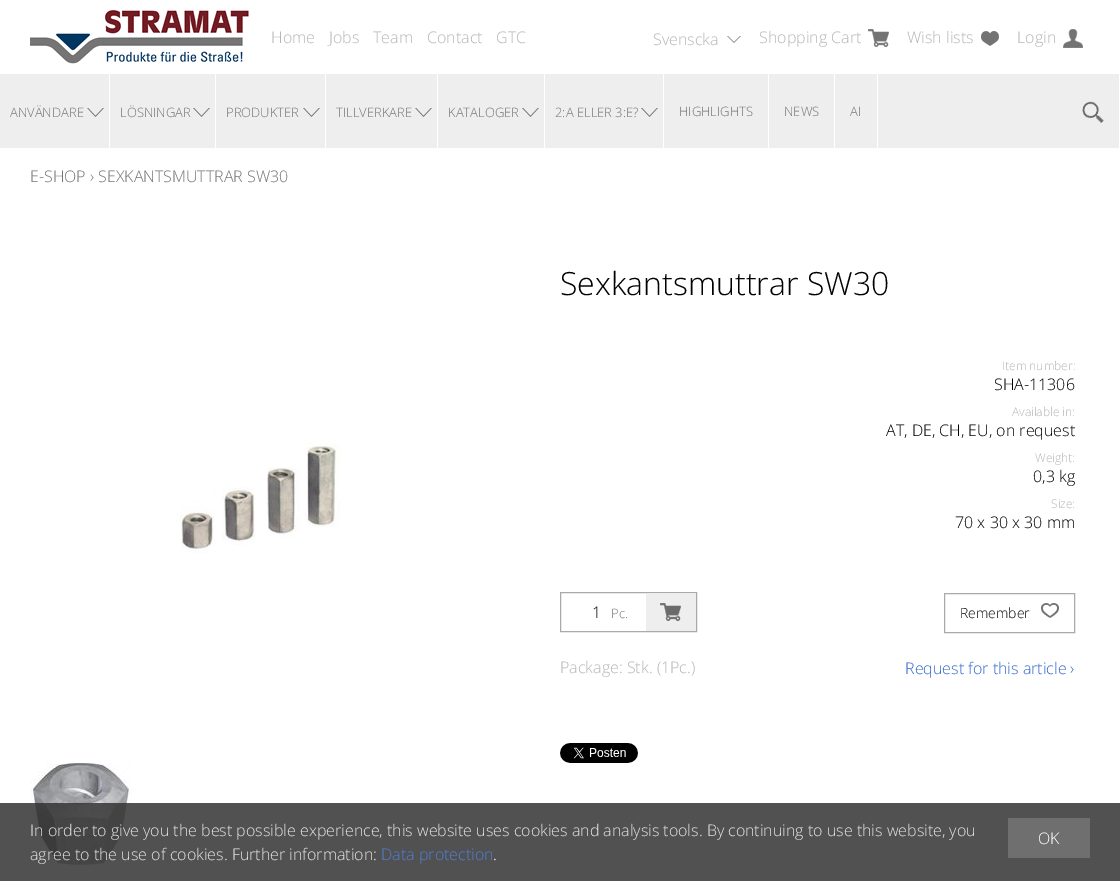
%!PS-Adobe-3.0
%%BoundingBox: 0 0 1120 881
%%LanguageLevel: 3
%%Pages: 1
%%EndComments
%%BeginProlog
/setink { 3 { 255 div 3 1 roll } repeat setrgbcolor } def
/usefont { [ exch dup neg 0 0 3 -1 roll 0 0 ] selectfont } def
/drawtext { setink usefont moveto show } def
/fillbox { setink rectfill } def
/setalpha { dup .setfillconstantalpha .setstrokeconstantalpha } def
/drawimage { 5 dict begin { /h /w /y /x /name } { exch def } forall
  gsave x y translate w h scale
  w h 8 [w 0 0 h 0 0] name (r) file false 3 colorimage grestore end } def
%%EndProlog
%%BeginSetup
<< /PageSize [1120 881] /PageUsesTransparency true >> setpagedevice
%%EndSetup
%%Page: 1 1
0 .pushpdf14devicefilter
0 881 translate 1 -1 scale
4 setmiterlimit
0 0 1120 881 255 255 255 fillbox
(assets/img1.rgb) 30 10 219 54 drawimage
(Home) 271 43 /OpenSans-Light 16 181 181 181 drawtext
(Jobs) 329 43 /OpenSans-Light 16 181 181 181 drawtext
(Team) 373 43 /OpenSans-Light 16 181 181 181 drawtext
(Contact) 427 43 /OpenSans-Light 16 181 181 181 drawtext
(GTC) 496 43 /OpenSans-Light 16 181 181 181 drawtext
(Svenscka) 653 45 /OpenSans-Light 16 181 181 181 drawtext
(assets/img2.rgb) 727 36 14 7 drawimage
(Shopping Cart) 759 43 /OpenSans-Light 16 181 181 181 drawtext
(assets/img3.rgb) 868 29 21 18 drawimage
(Wish lists) 907 43 /OpenSans-Light 16 181 181 181 drawtext
(assets/img4.rgb) 981 31 18 15 drawimage
(Login) 1017 43 /OpenSans-Light 16 181 181 181 drawtext
(assets/img5.rgb) 1063 29 20 19 drawimage
0 74 1119 74 238 238 238 fillbox
109 74 1 74 255 255 255 fillbox
(ANVÄNDARE) 10 117 /OpenSans-Light 13 116 116 116 drawtext
(assets/img6.rgb) 87 108 17 9 drawimage
215 74 1 74 255 255 255 fillbox
(LÖSNINGAR) 120 117 /OpenSans-Light 13 116 116 116 drawtext
(assets/img6.rgb) 193 108 17 9 drawimage
325 74 1 74 255 255 255 fillbox
(PRODUKTER) 226 117 /OpenSans-Light 13 116 116 116 drawtext
(assets/img6.rgb) 303 108 17 9 drawimage
437 74 1 74 255 255 255 fillbox
(TILLVERKARE) 336 117 /OpenSans-Light 13 116 116 116 drawtext
(assets/img6.rgb) 415 108 17 9 drawimage
544 74 1 74 255 255 255 fillbox
(KATALOGER) 448 117 /OpenSans-Light 13 116 116 116 drawtext
(assets/img6.rgb) 522 108 17 9 drawimage
663 74 1 74 255 255 255 fillbox
(2:A ELLER 3:E?) 555 117 /OpenSans-Light 13 116 116 116 drawtext
(assets/img6.rgb) 641 108 17 9 drawimage
768 74 1 74 255 255 255 fillbox
(HIGHLIGHTS) 679 116 /OpenSans-Light 13 116 116 116 drawtext
834 74 1 74 255 255 255 fillbox
(NEWS) 784 116 /OpenSans-Light 13 116 116 116 drawtext
877 74 1 74 255 255 255 fillbox
(AI) 850 116 /OpenSans-Light 13 116 116 116 drawtext
(assets/img7.rgb) 1082 101 22 22 drawimage
(E-SHOP › SEXKANTSMUTTRAR SW30) 30 182 /OpenSans-Light 16 116 116 116 drawtext
(assets/img8.rgb) 176 443 164 110 drawimage
(assets/img9.rgb) 30 763 102 102 drawimage
(Sexkantsmuttrar SW30) 560 295 /OpenSans-Light 32 0 0 0 drawtext
(Item number:) 1002 370 /OpenSans-Light 12 181 181 181 drawtext
(SHA-11306) 994 390 /OpenSans-Light 16 0 0 0 drawtext
(Available in:) 1012 416 /OpenSans-Light 12 181 181 181 drawtext
(AT, DE, CH, EU, on request) 886 436 /OpenSans-Light 16 0 0 0 drawtext
(Weight:) 1035 462 /OpenSans-Light 12 181 181 181 drawtext
(0,3 kg) 1033 482 /OpenSans-Light 16 0 0 0 drawtext
(Size:) 1051 508 /OpenSans-Light 12 181 181 181 drawtext
(70 x 30 x 30 mm) 955 528 /OpenSans-Light 16 0 0 0 drawtext
170 170 170 setink
560.5 592.5 136 39 rectstroke
(1) 592 618 /OpenSans-Light 16 0 0 0 drawtext
(Pc.) 611 618 /OpenSans-Light 13 116 116 116 drawtext
646 593 50 38 238 238 238 fillbox
(assets/img10.rgb) 660 603 21 18 drawimage
(Package: Stk. \(1Pc.\)) 560 673 /OpenSans-Light 16 181 181 181 drawtext
170 170 170 setink
944.5 593.5 130 39 rectstroke
(Remember) 960 618 /OpenSans-Light 14 0 0 0 drawtext
(assets/img11.rgb) 1041 603 18 15 drawimage
(Request for this article ›) 905 674 /OpenSans-Light 16 51 102 204 drawtext
(assets/img12.rgb) 560 743 78 20 drawimage
0.85 setalpha
0 803 1120 78 51 51 51 fillbox
1 setalpha
(In order to give you the best possible experience, this website uses cookies and analysis tools. By continuing to use this website, you) 30 836 /OpenSans-Light 16 229 229 229 drawtext
1008 818 82 40 111 111 111 fillbox
(OK) 1038 844 /OpenSans-Light 16 255 255 255 drawtext
(agree to the use of cookies. Further information:) 30 860 /OpenSans-Light 16 229 229 229 drawtext
(Data protection) 381 860 /OpenSans-Light 16 82 125 212 drawtext
(.) 493 860 /OpenSans-Light 16 255 255 255 drawtext
.poppdf14devicefilter showpage
%%EOF
